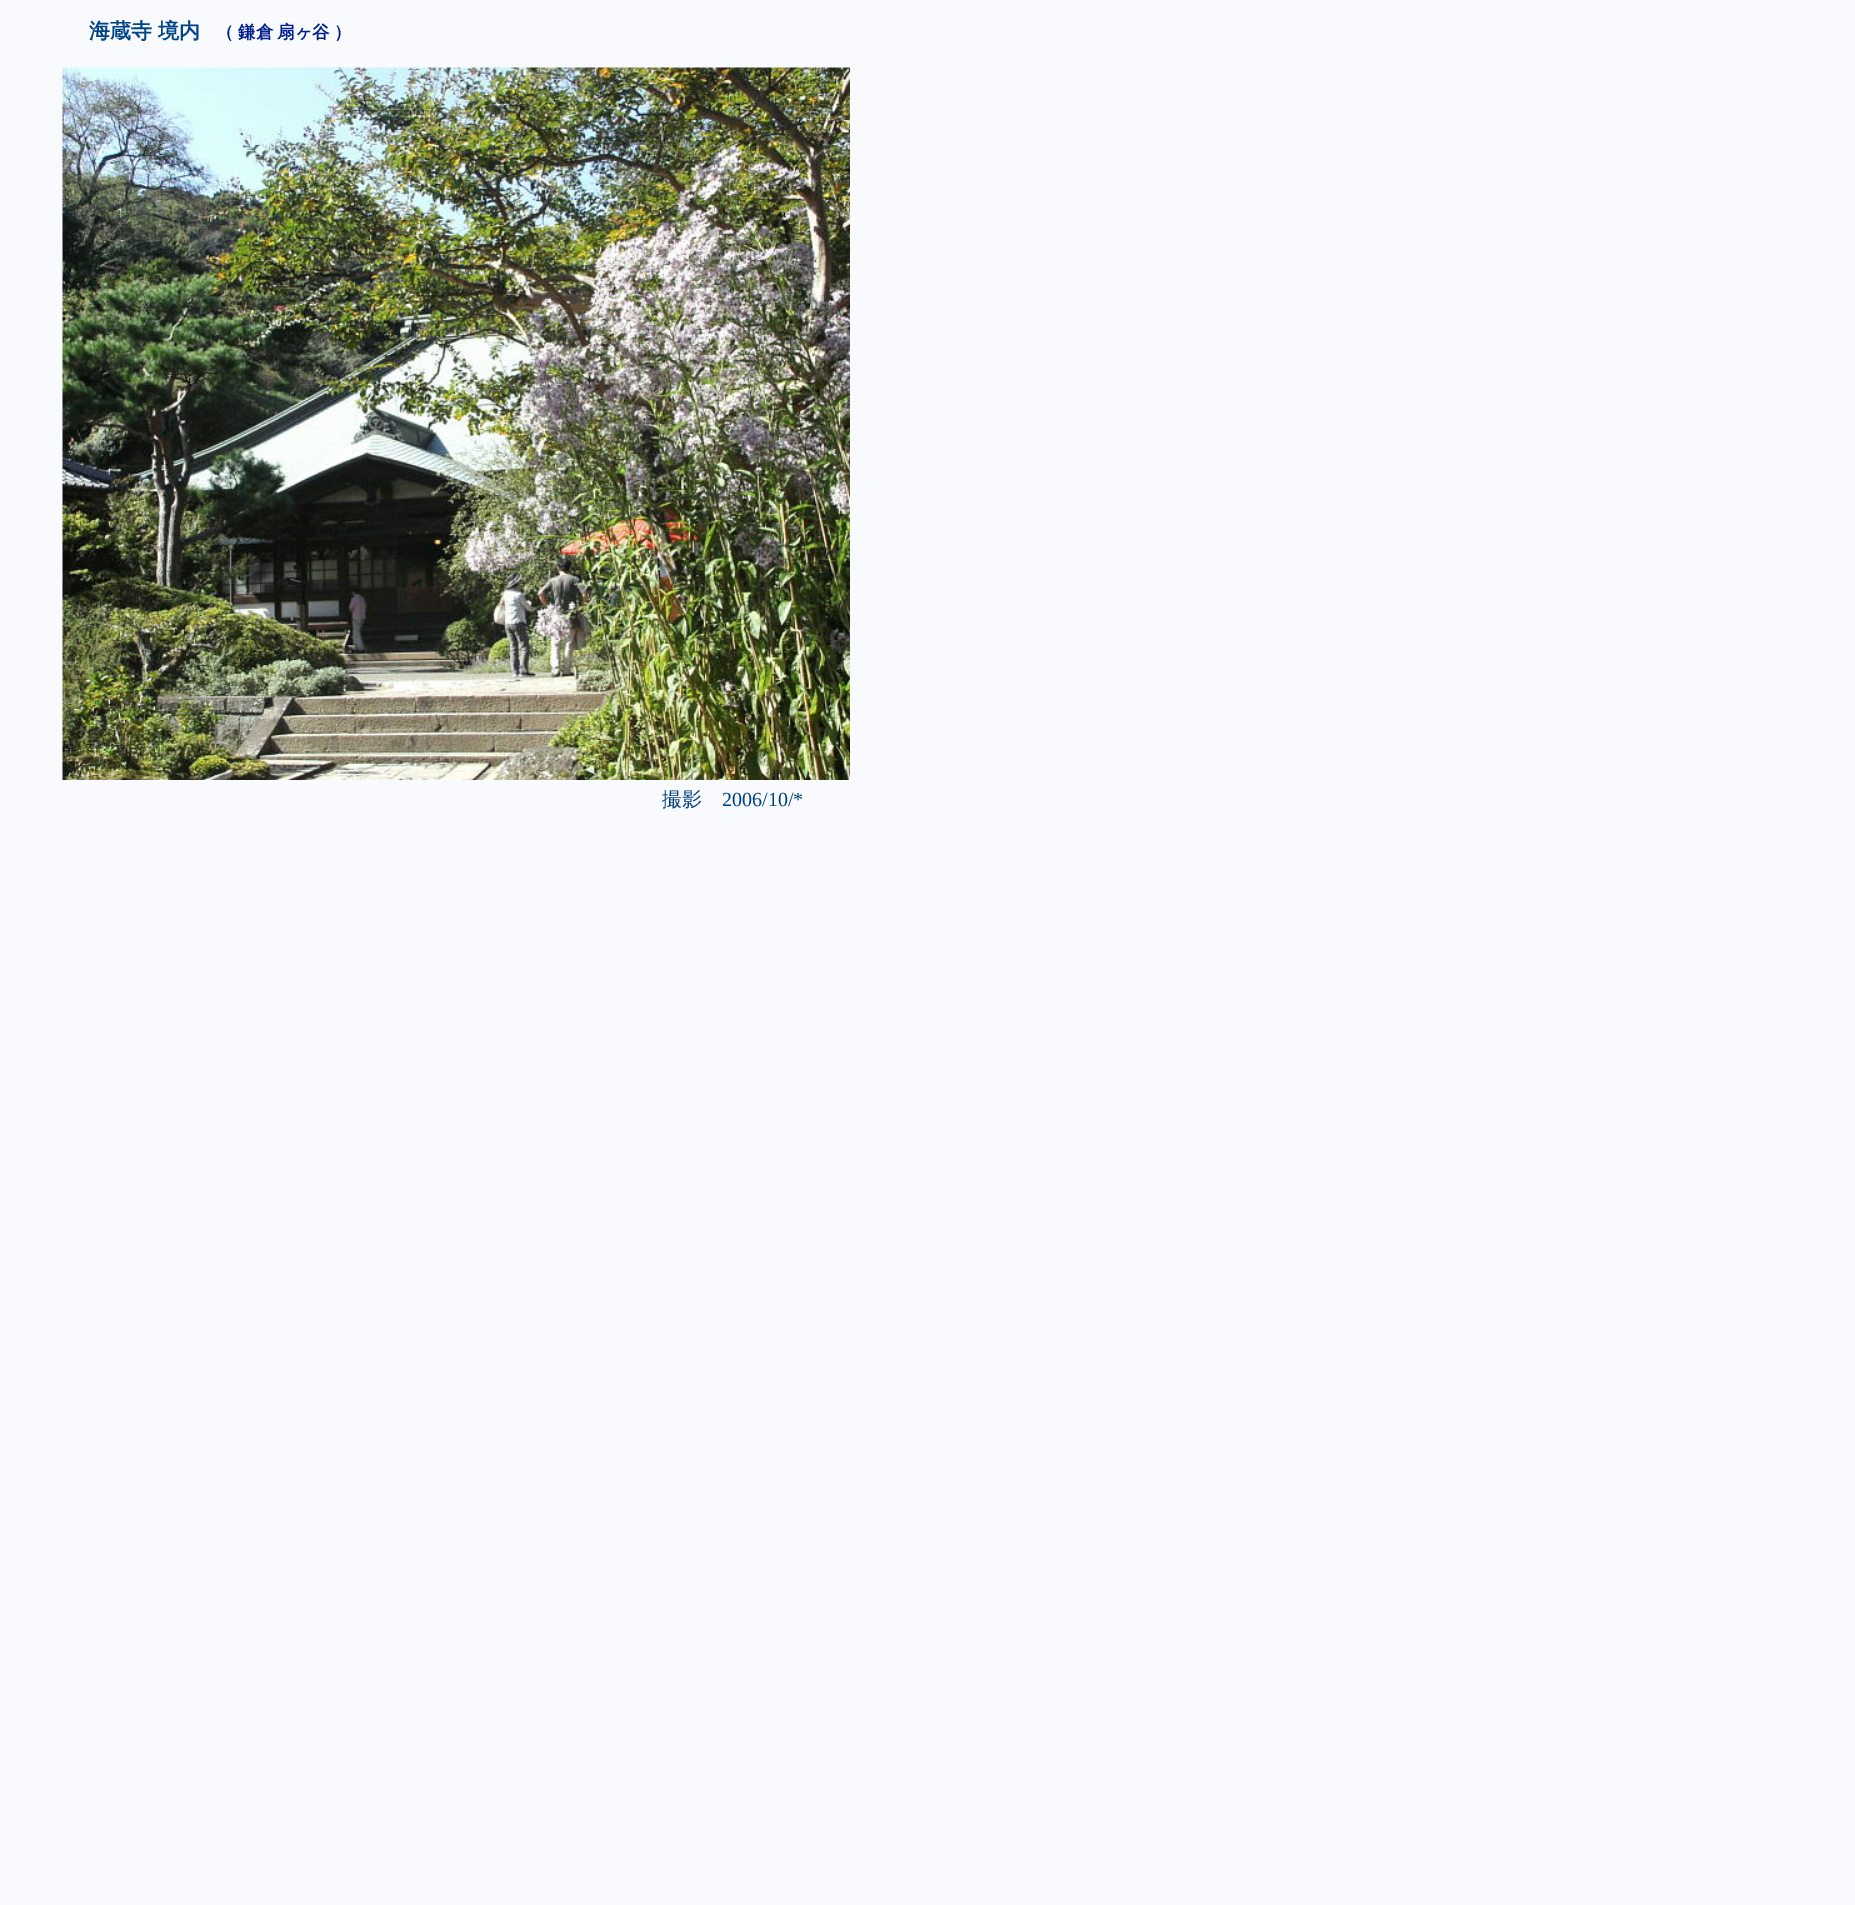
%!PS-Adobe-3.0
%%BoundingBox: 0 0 1855 1905
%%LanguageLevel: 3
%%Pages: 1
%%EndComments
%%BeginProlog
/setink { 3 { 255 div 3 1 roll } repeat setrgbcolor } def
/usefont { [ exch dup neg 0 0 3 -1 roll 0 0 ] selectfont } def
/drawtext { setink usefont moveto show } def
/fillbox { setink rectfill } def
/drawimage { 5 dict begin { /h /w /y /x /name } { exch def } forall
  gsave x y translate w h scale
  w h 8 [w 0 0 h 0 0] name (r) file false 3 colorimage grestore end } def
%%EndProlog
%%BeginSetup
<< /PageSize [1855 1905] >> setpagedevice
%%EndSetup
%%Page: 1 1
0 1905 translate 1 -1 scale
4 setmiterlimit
0 0 1855 1905 248 250 254 fillbox
(海蔵寺) 89 38 /WenQuanYiZenHei-Bold 21 0 68 136 drawtext
(境内) 158 38 /WenQuanYiZenHei-Bold 21 0 68 136 drawtext
(（) 216 38 /WenQuanYiZenHei-Bold 17.5 0 32 143 drawtext
(鎌倉) 238 38 /WenQuanYiZenHei-Bold 17.5 0 32 143 drawtext
(扇ヶ谷) 277 38 /WenQuanYiZenHei-Bold 17.5 0 32 143 drawtext
(）) 334 38 /WenQuanYiZenHei-Bold 17.5 0 32 143 drawtext
(assets/img1.rgb) 62 67 788 713 drawimage
(撮影) 662 806 /WenQuanYiZenHei-Medium 20 0 64 128 drawtext
(2006/10/*) 722 806 /LiberationSerif-Regular 20 0 64 128 drawtext
showpage
%%EOF
